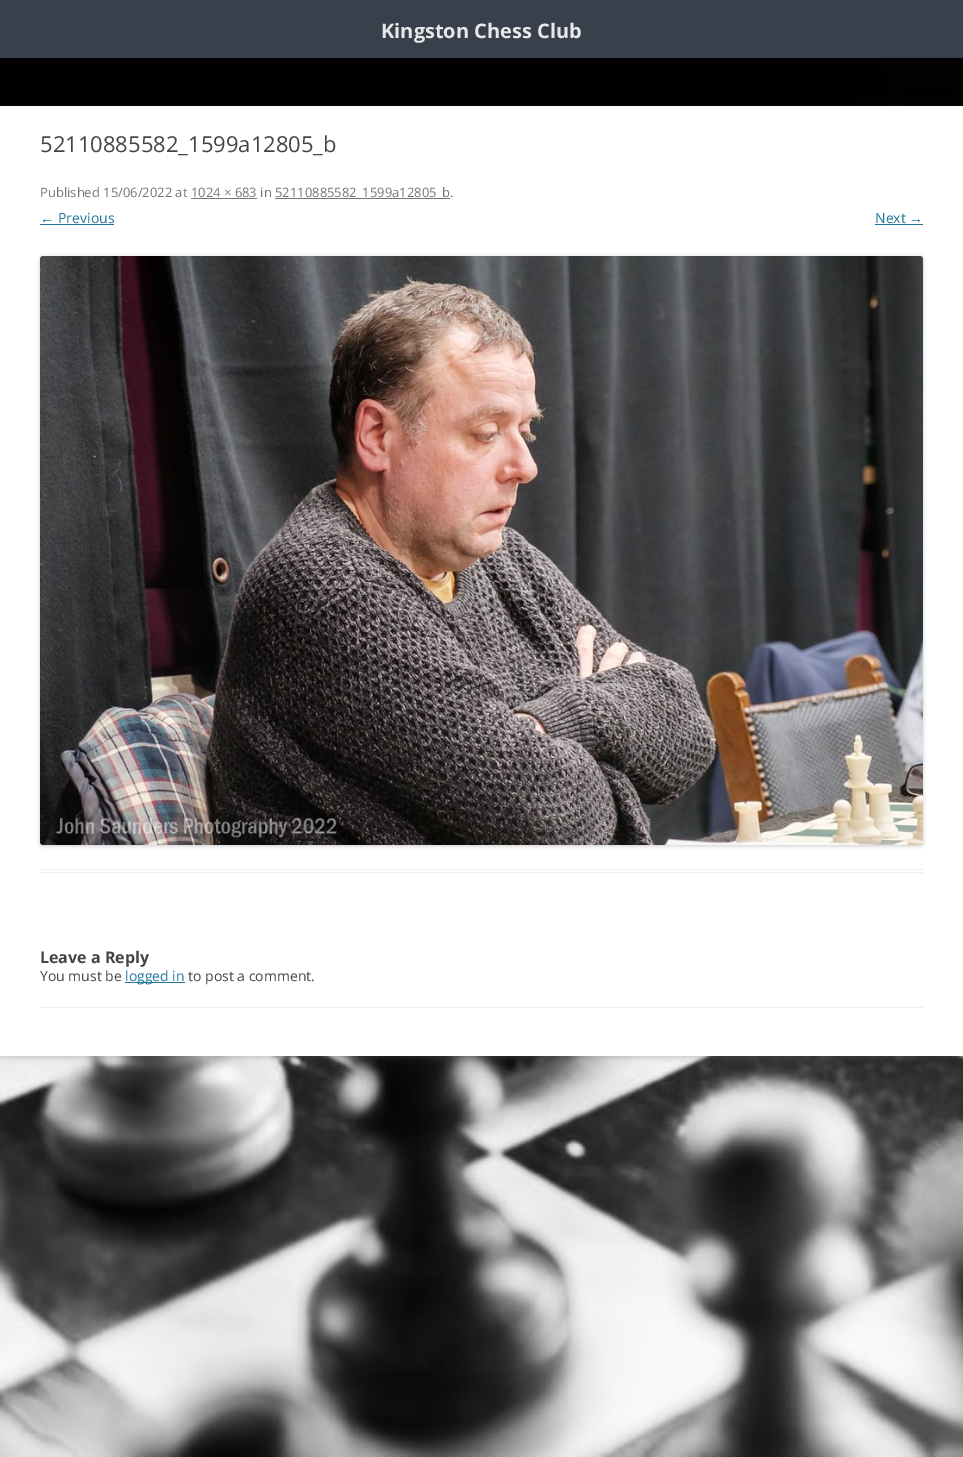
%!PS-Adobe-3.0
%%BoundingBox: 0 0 963 1457
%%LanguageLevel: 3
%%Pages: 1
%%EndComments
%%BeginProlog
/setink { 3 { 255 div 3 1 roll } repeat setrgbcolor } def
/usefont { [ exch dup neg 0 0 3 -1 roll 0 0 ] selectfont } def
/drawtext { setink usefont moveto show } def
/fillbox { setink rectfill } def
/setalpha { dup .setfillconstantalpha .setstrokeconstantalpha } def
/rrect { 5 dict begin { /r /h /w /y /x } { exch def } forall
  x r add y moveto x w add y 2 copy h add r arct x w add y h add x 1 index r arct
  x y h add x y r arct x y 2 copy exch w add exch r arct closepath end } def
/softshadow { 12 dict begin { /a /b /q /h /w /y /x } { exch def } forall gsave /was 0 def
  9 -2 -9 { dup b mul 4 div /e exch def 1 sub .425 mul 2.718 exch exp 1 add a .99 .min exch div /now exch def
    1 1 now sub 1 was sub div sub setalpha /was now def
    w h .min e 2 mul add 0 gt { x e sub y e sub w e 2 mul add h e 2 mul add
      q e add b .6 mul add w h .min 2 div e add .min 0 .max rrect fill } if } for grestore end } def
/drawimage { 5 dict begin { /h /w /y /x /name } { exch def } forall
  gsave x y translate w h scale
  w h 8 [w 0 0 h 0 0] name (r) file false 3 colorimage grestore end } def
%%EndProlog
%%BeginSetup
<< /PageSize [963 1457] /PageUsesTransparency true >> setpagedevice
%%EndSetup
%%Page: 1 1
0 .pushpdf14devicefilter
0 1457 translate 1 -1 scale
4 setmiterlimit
0 0 963 1457 255 255 255 fillbox
(assets/img1.rgb) 0 58 963 1399 drawimage
0 0 963 58 56 64 76 fillbox
(Kingston Chess Club) 381 38 /OpenSans-Bold 20 232 232 232 drawtext
100 100 100 setink
0 108 963 950 0 3 0.3 softshadow
0 106 963 950 255 255 255 fillbox
40 869 883 1 237 237 237 fillbox
40 872 883 1 237 237 237 fillbox
(52110885582_1599a12805_b) 40 152 /OpenSans-Regular 22 68 68 68 drawtext
(Published 15/06/2022 at 1024 × 683 in) 40 197 /OpenSans-Regular 13 117 117 117 drawtext
275 198 175 1 117 117 117 fillbox
(52110885582_1599a12805_b.) 275 197 /OpenSans-Regular 13 117 117 117 drawtext
191 198 66 1 117 117 117 fillbox
(←) 40 223 /LiberationSans-Regular 14 33 117 155 drawtext
40 224 74 1 33 117 155 fillbox
(Previous) 58 223 /OpenSans-Regular 14 33 117 155 drawtext
(Next) 875 223 /OpenSans-Regular 14 33 117 155 drawtext
(→) 909 223 /LiberationSans-Regular 14 33 117 155 drawtext
875 224 48 1 33 117 155 fillbox
0 0 0 setink
40 257 883 589 3 2 0.2 softshadow
(assets/img2.rgb) 40 256 883 589 drawimage
(Leave a Reply) 40 963 /OpenSans-Bold 16 68 68 68 drawtext
(You must be) 40 981 /OpenSans-Regular 14 68 68 68 drawtext
125 982 60 1 33 117 155 fillbox
(logged in) 125 981 /OpenSans-Regular 14 33 117 155 drawtext
(to post a comment.) 188 981 /OpenSans-Regular 14 68 68 68 drawtext
40 1007 883 1 237 237 237 fillbox
.poppdf14devicefilter showpage
%%EOF
